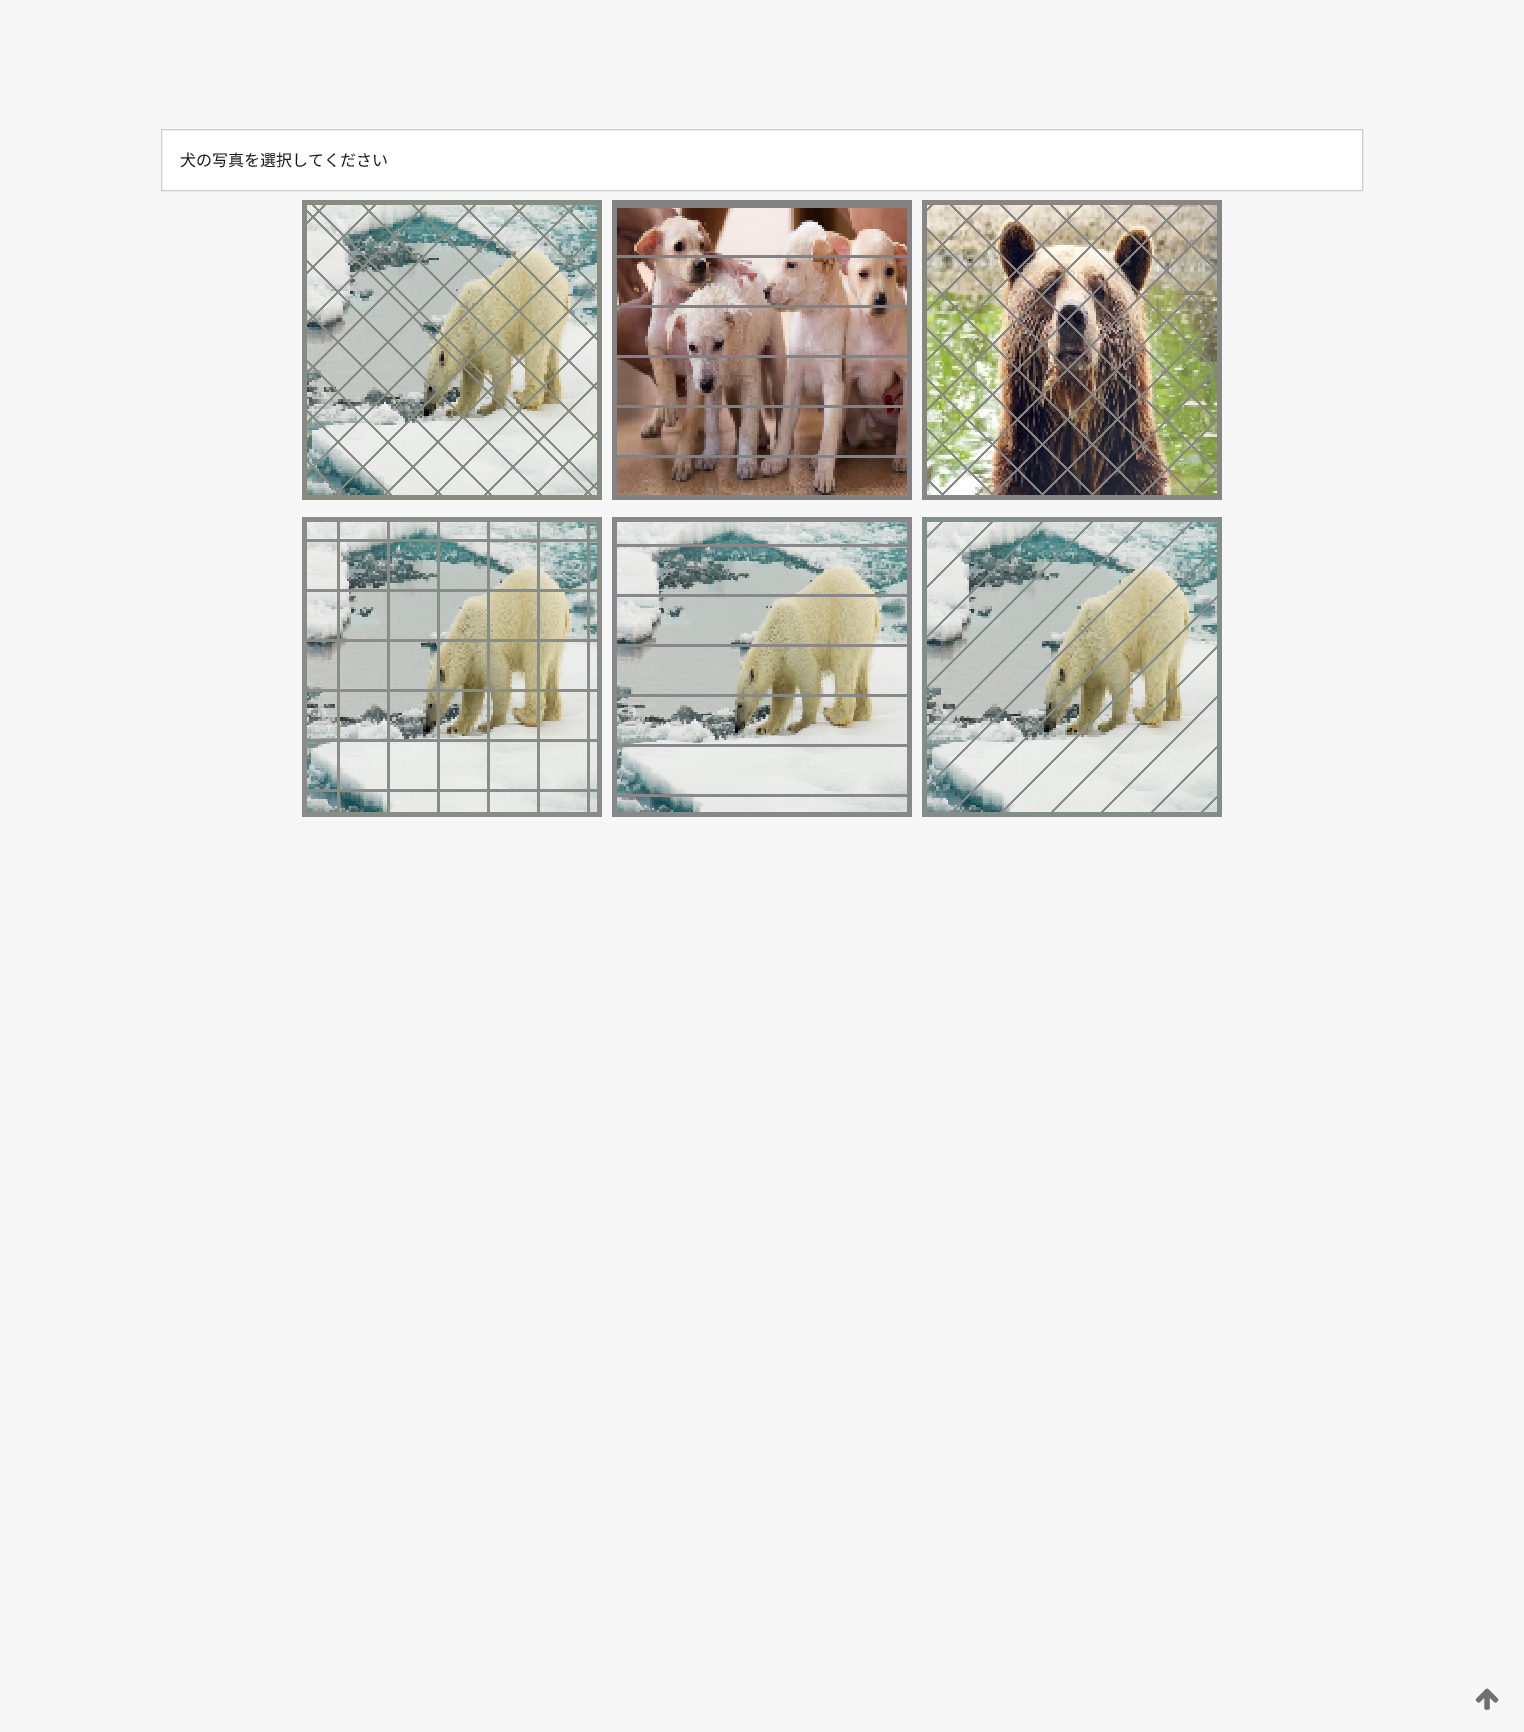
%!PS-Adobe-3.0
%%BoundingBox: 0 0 1524 1732
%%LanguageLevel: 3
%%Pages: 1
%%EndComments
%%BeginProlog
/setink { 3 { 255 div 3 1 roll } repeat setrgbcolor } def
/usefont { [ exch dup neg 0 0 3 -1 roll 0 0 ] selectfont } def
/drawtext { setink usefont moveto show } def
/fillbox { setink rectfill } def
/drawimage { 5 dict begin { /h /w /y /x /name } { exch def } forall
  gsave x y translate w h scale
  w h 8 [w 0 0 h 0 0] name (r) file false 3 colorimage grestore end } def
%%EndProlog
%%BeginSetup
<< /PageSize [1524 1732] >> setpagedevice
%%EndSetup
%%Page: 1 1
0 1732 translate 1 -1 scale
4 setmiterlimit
0 0 1524 1732 247 247 247 fillbox
255 255 255 setink
161.5 129.5 moveto 1362.5 129.5 lineto 1362.5 190.5 lineto 161.5 190.5 lineto closepath gsave fill grestore
204 204 204 setink
stroke
(犬の写真を選択してください) 180 166 /NotoSansSC-Thin 16 26 26 26 drawtext
(assets/img1.rgb) 302 200 300 300 drawimage
(assets/img2.rgb) 612 200 300 300 drawimage
(assets/img3.rgb) 922 200 300 300 drawimage
(assets/img4.rgb) 302 517 300 300 drawimage
(assets/img5.rgb) 612 517 300 300 drawimage
(assets/img6.rgb) 922 517 300 300 drawimage
(assets/img7.rgb) 1475 1688 24 22 drawimage
showpage
%%EOF
